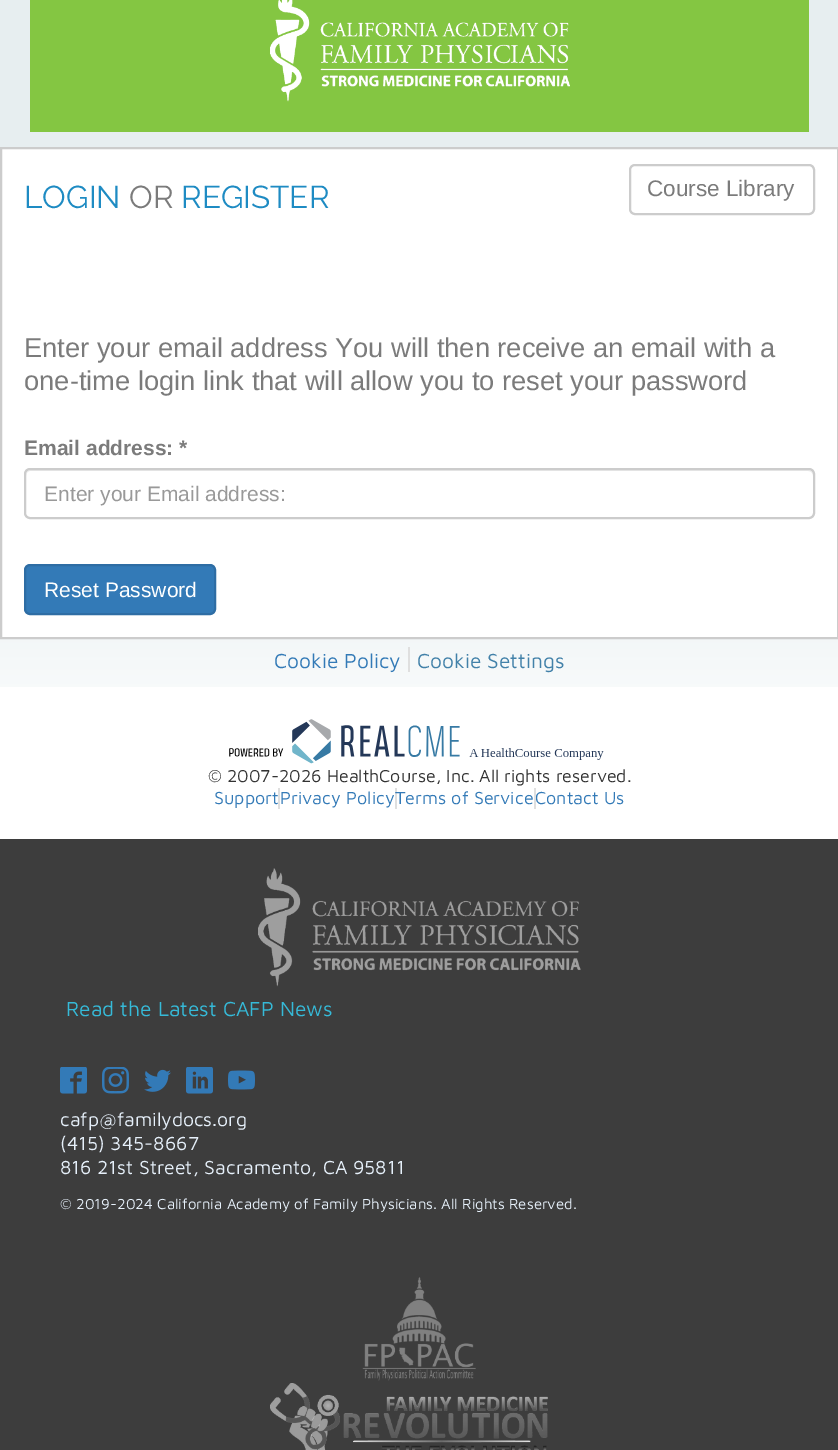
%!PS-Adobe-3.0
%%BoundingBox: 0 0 838 1450
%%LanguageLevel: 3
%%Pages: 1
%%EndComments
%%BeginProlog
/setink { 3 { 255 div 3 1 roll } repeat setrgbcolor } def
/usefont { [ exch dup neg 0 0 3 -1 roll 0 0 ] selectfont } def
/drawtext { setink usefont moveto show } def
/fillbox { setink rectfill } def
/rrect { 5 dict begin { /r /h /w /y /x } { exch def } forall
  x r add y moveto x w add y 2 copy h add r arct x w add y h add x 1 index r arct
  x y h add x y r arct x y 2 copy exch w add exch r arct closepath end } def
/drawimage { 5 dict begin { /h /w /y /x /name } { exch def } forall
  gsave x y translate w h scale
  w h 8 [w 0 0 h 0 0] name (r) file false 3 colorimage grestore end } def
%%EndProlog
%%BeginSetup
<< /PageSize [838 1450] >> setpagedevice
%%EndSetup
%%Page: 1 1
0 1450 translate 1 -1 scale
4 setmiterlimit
0 0 838 1450 255 255 255 fillbox
(assets/img1.rgb) 0 0 838 687 drawimage
30 0 779 132 132 198 66 fillbox
(assets/img2.rgb) 270 0 300 102 drawimage
255 255 255 setink
1 148 moveto 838 148 lineto 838 638 lineto 1 638 lineto closepath gsave fill grestore
204 204 204 setink
2 setlinewidth
stroke
(LOGIN) 24 208 /Raleway-Regular 31.5 30 139 195 drawtext
(OR) 129 208 /Raleway-Regular 31.5 123 123 123 drawtext
(REGISTER) 181 208 /Raleway-Regular 31.5 30 139 195 drawtext
204 204 204 setink
630 165 184 49 5 rrect stroke
(Course Library) 647 196 /LiberationSans-Regular 22.5 123 123 123 drawtext
(Enter your email address You will then receive an email with a) 24 357 /LiberationSans-Regular 27.3 123 123 123 drawtext
(one-time login link that will allow you to reset your password) 24 390 /LiberationSans-Regular 27.3 123 123 123 drawtext
(Email address: *) 24 455 /LiberationSans-Bold 21 123 123 123 drawtext
236 236 236 setink
30 471 moveto 808 471 lineto 811 471 813 473 813 476 curveto 813 475 lineto 813 472 811 470 808 470 curveto 31 470 lineto 28 470 26 472 26 475 curveto 26 476 lineto 26 473 28 471 30 471 curveto closepath fill
204 204 204 setink
25 469 789 49 5 rrect stroke
(Enter your Email address:) 44 501 /LiberationSans-Regular 21 153 153 153 drawtext
51 122 183 setink
25 565 190 49 5 rrect gsave fill grestore
46 109 164 setink
stroke
(Reset Password) 44 597 /LiberationSans-Regular 21 255 255 255 drawtext
408 647 2 25 223 223 223 fillbox
(Cookie Policy) 274 668 /MavenPro-Regular 21 51 122 183 drawtext
(Cookie Settings) 417 668 /MavenPro-Regular 21 66 129 169 drawtext
(assets/img3.rgb) 229 719 375 45 drawimage
(© 2007-2026 HealthCourse, Inc. All rights reserved.) 208 782 /MavenPro-Regular 17.85 51 51 51 drawtext
278 788 2 21 223 223 223 fillbox
(Support) 214 804 /MavenPro-Regular 18 51 122 183 drawtext
395 788 2 21 223 223 223 fillbox
(Privacy Policy) 280 804 /MavenPro-Regular 18 51 122 183 drawtext
534 788 2 21 223 223 223 fillbox
(Terms of Service) 395 804 /MavenPro-Regular 18 51 122 183 drawtext
(Contact Us) 535 804 /MavenPro-Regular 18 51 122 183 drawtext
0 839 838 611 61 61 61 fillbox
(assets/img4.rgb) 258 868 323 119 drawimage
(Read the Latest CAFP News) 66 1016 /MavenPro-Regular 21 54 186 216 drawtext
(assets/img5.rgb) 60 1067 27 27 drawimage
(assets/img6.rgb) 102 1067 27 27 drawimage
(assets/img7.rgb) 144 1069 27 23 drawimage
(assets/img8.rgb) 186 1067 27 27 drawimage
(assets/img9.rgb) 228 1070 27 20 drawimage
(cafp@familydocs.org) 60 1126 /MavenPro-Regular 19.5 230 240 250 drawtext
(\(415\) 345-8667) 60 1150 /MavenPro-Regular 19.5 230 240 250 drawtext
(816 21st Street, Sacramento, CA 95811) 60 1174 /MavenPro-Regular 19.5 230 240 250 drawtext
(© 2019-2024 California Academy of Family Physicians. All Rights Reserved.) 60 1209 /MavenPro-Regular 15 230 240 250 drawtext
(assets/img10.rgb) 362 1277 114 104 drawimage
(assets/img11.rgb) 270 1383 278 67 drawimage
showpage
%%EOF
